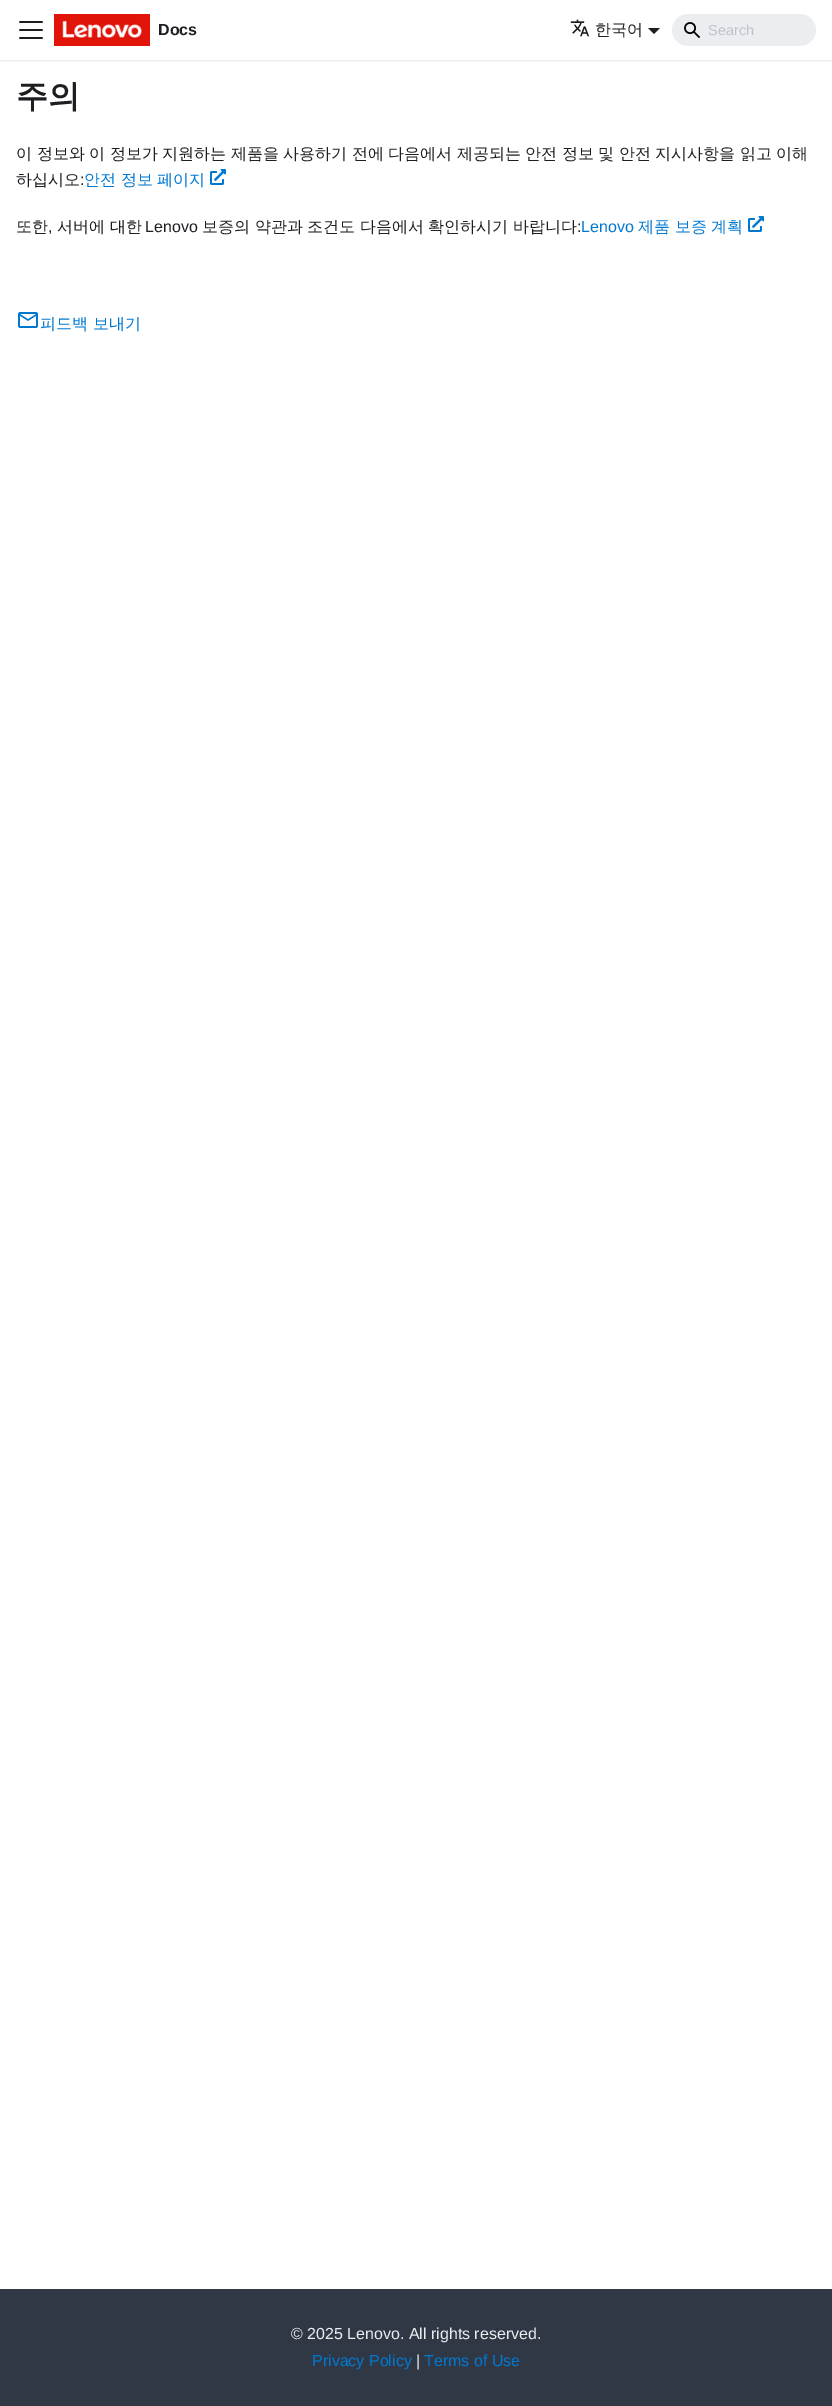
%!PS-Adobe-3.0
%%BoundingBox: 0 0 832 2406
%%LanguageLevel: 3
%%Pages: 1
%%EndComments
%%BeginProlog
/setink { 3 { 255 div 3 1 roll } repeat setrgbcolor } def
/usefont { [ exch dup neg 0 0 3 -1 roll 0 0 ] selectfont } def
/drawtext { setink usefont moveto show } def
/fillbox { setink rectfill } def
/setalpha { dup .setfillconstantalpha .setstrokeconstantalpha } def
/rrect { 5 dict begin { /r /h /w /y /x } { exch def } forall
  x r add y moveto x w add y 2 copy h add r arct x w add y h add x 1 index r arct
  x y h add x y r arct x y 2 copy exch w add exch r arct closepath end } def
/softshadow { 12 dict begin { /a /b /q /h /w /y /x } { exch def } forall gsave /was 0 def
  9 -2 -9 { dup b mul 4 div /e exch def 1 sub .425 mul 2.718 exch exp 1 add a .99 .min exch div /now exch def
    1 1 now sub 1 was sub div sub setalpha /was now def
    w h .min e 2 mul add 0 gt { x e sub y e sub w e 2 mul add h e 2 mul add
      q e add b .6 mul add w h .min 2 div e add .min 0 .max rrect fill } if } for grestore end } def
/drawimage { 5 dict begin { /h /w /y /x /name } { exch def } forall
  gsave x y translate w h scale
  w h 8 [w 0 0 h 0 0] name (r) file false 3 colorimage grestore end } def
%%EndProlog
%%BeginSetup
<< /PageSize [832 2406] /PageUsesTransparency true >> setpagedevice
%%EndSetup
%%Page: 1 1
0 .pushpdf14devicefilter
0 2406 translate 1 -1 scale
4 setmiterlimit
0 0 832 2406 255 255 255 fillbox
gsave
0 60 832 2 rectclip
0 0 0 setink
0 1 832 60 0 1 0.1 softshadow
grestore
(assets/img1.rgb) 19 21 24 18 drawimage
(assets/img2.rgb) 54 14 96 32 drawimage
(Docs) 158 35 /LiberationSans-Bold 16 28 30 33 drawtext
(assets/img3.rgb) 570 19 20 18 drawimage
(한국어) 595 35 /WenQuanYiZenHei-Medium 16 28 30 33 drawtext
648 28 moveto 660 28 lineto 654 34 lineto closepath fill
235 237 240 setink
672 14 144 32 16 rrect fill
(assets/img4.rgb) 684 22 16 16 drawimage
(Search) 708 35 /LiberationSans-Regular 14.5 190 195 201 drawtext
(주의) 16 107 /WenQuanYiZenHei-Bold 32 28 30 33 drawtext
/WenQuanYiZenHei-Medium 16 usefont
16 159 moveto -0.3 0 32 (이 정보와 이 정보가 지원하는 제품을 사용하기 전에 다음에서 제공되는 안전 정보 및 안전 지시사항을 읽고 이해) widthshow
(하십시오) 16 185 /WenQuanYiZenHei-Medium 16 28 30 33 drawtext
(:) 80 185 /LiberationSans-Regular 16 28 30 33 drawtext
/WenQuanYiZenHei-Medium 16 usefont
0 120 208 setink
84 185 moveto -0.3 0 32 (안전 정보 페이지) widthshow
(assets/img5.rgb) 210 169 16 16 drawimage
(또한) 16 232 /WenQuanYiZenHei-Medium 16 28 30 33 drawtext
57 232 moveto -0.25 0 32 (서버에 대한) widthshow
(Lenovo) 145 232 /LiberationSans-Regular 16 28 30 33 drawtext
/WenQuanYiZenHei-Medium 16 usefont
202 232 moveto -0.25 0 32 (보증의 약관과 조건도 다음에서 확인하시기 바랍니다) widthshow
(:) 577 232 /LiberationSans-Regular 16 28 30 33 drawtext
(Lenovo) 581 232 /LiberationSans-Regular 16 0 120 208 drawtext
/WenQuanYiZenHei-Medium 16 usefont
638 232 moveto -0.25 0 32 (제품 보증 계획) widthshow
(assets/img5.rgb) 748 216 16 16 drawimage
(,) 48 232 /LiberationSans-Regular 16 28 30 33 drawtext
(assets/img6.rgb) 18 312 20 16 drawimage
/WenQuanYiZenHei-Medium 16 usefont
0 120 208 setink
40 329 moveto -0.3 0 32 (피드백 보내기) widthshow
0 2289 832 117 48 56 70 fillbox
(© 2025 Lenovo. All rights reserved.) 291 2339 /LiberationSans-Regular 16 235 237 240 drawtext
(Privacy Policy) 312 2366 /LiberationSans-Regular 16 0 120 208 drawtext
(|) 416 2366 /LiberationSans-Regular 16 235 237 240 drawtext
(Terms of Use) 424 2366 /LiberationSans-Regular 16 0 120 208 drawtext
.poppdf14devicefilter showpage
%%EOF
